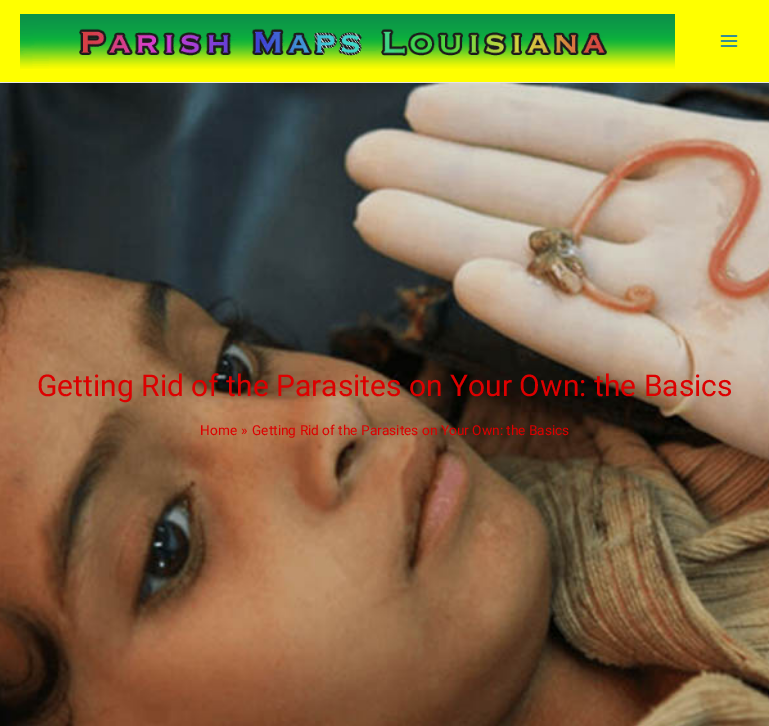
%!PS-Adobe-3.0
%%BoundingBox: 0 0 769 726
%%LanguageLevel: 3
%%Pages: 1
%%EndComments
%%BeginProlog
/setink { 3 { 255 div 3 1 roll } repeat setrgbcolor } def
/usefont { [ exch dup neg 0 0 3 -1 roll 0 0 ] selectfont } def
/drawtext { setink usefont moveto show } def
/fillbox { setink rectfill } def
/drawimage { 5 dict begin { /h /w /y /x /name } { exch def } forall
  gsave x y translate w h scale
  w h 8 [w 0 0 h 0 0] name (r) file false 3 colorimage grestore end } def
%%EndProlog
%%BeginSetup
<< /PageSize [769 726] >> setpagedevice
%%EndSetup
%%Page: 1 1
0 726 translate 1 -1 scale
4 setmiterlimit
0 0 769 726 255 255 255 fillbox
0 0 769 82 255 255 0 fillbox
0 82 769 1 229 229 229 fillbox
(assets/img1.rgb) 20 14 655 55 drawimage
(assets/img2.rgb) 720 35 18 12 drawimage
(assets/img3.rgb) 0 83 769 643 drawimage
(Getting Rid of the Parasites on Your Own: the Basics) 37 396 /Roboto-Regular 30 221 0 0 drawtext
(Home) 200 435 /Roboto-Regular 13.7 221 0 0 drawtext
(») 241 435 /Roboto-Regular 13.7 221 0 0 drawtext
(Getting Rid of the Parasites on Your Own: the Basics) 252 435 /Roboto-Regular 13.7 221 0 0 drawtext
showpage
%%EOF
